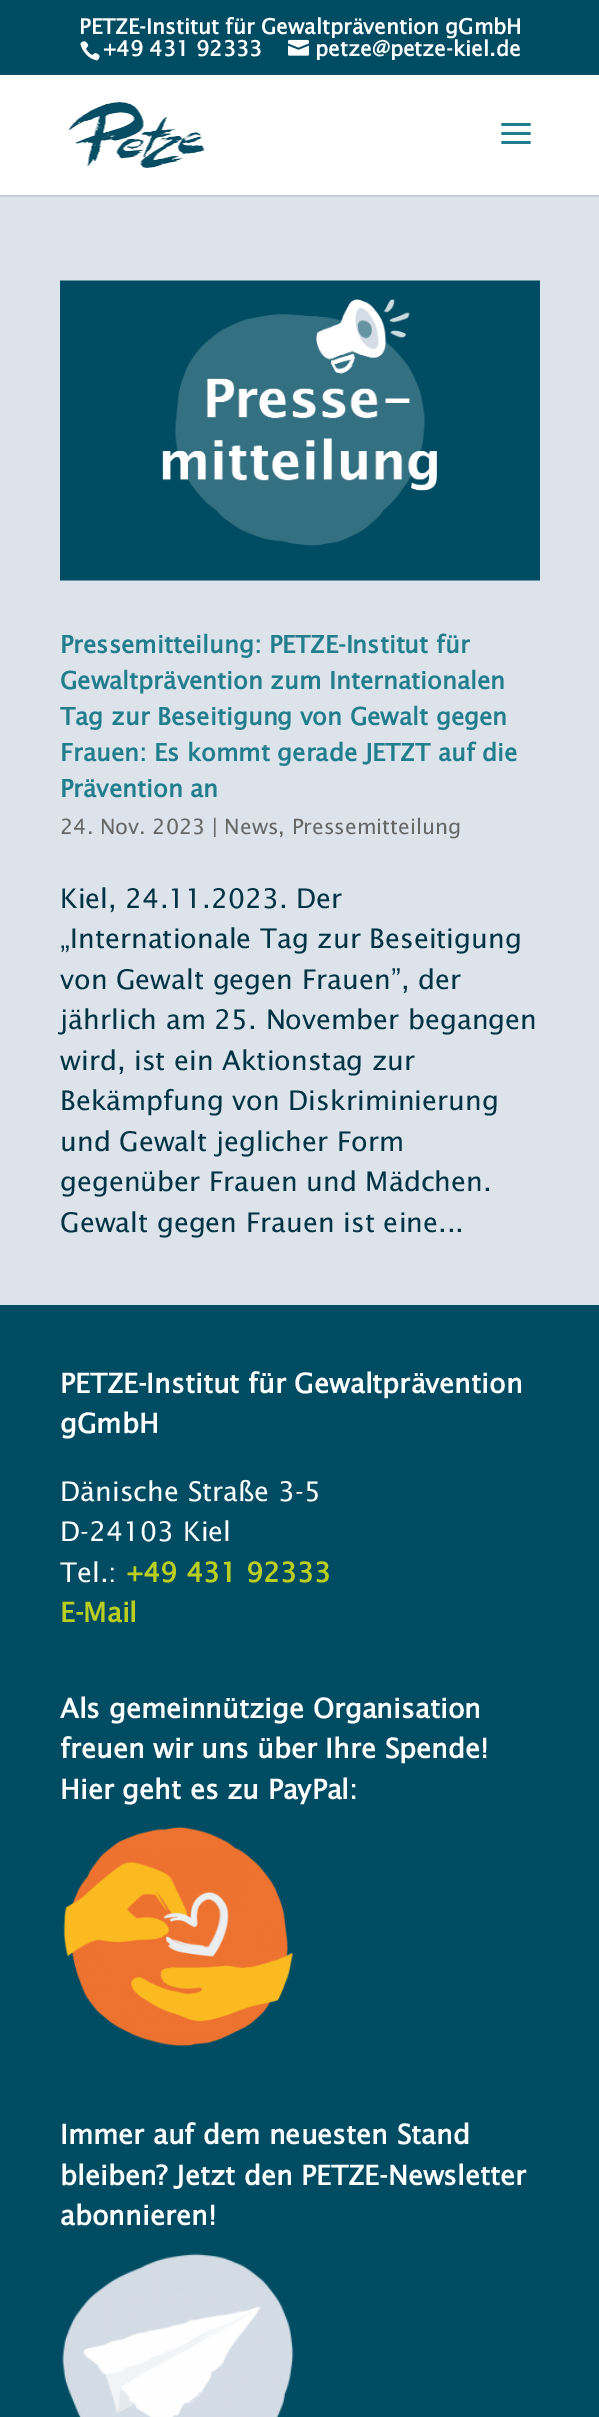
%!PS-Adobe-3.0
%%BoundingBox: 0 0 599 2417
%%LanguageLevel: 3
%%Pages: 1
%%EndComments
%%BeginProlog
/setink { 3 { 255 div 3 1 roll } repeat setrgbcolor } def
/usefont { [ exch dup neg 0 0 3 -1 roll 0 0 ] selectfont } def
/drawtext { setink usefont moveto show } def
/fillbox { setink rectfill } def
/drawimage { 5 dict begin { /h /w /y /x /name } { exch def } forall
  gsave x y translate w h scale
  w h 8 [w 0 0 h 0 0] name (r) file false 3 colorimage grestore end } def
%%EndProlog
%%BeginSetup
<< /PageSize [599 2417] >> setpagedevice
%%EndSetup
%%Page: 1 1
0 2417 translate 1 -1 scale
4 setmiterlimit
0 0 599 2417 0 77 99 fillbox
(PETZE-Institut für Gewaltprävention gGmbH) 79 34 /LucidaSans-Bold 21 255 255 255 drawtext
(assets/img1.rgb) 80 41 20 20 drawimage
(+49 431 92333) 103 56 /LucidaSans-Bold 21 255 255 255 drawtext
(assets/img2.rgb) 288 39 21 17 drawimage
(petze@petze-kiel.de) 315 56 /LucidaSans-Bold 21 255 255 255 drawtext
0 195 599 2 199 204 212 fillbox
0 75 599 120 255 255 255 fillbox
(assets/img3.rgb) 68 102 137 66 drawimage
(assets/img4.rgb) 501 123 30 21 drawimage
0 197 599 1108 221 227 235 fillbox
(assets/img5.rgb) 60 280 480 301 drawimage
(Pressemitteilung: PETZE-Institut für) 60 653 /LucidaSans-Bold 24 34 125 141 drawtext
(Gewaltprävention zum Internationalen) 60 689 /LucidaSans-Bold 24 34 125 141 drawtext
(Tag zur Beseitigung von Gewalt gegen) 60 725 /LucidaSans-Bold 24 34 125 141 drawtext
(Frauen: Es kommt gerade JETZT auf die) 60 761 /LucidaSans-Bold 24 34 125 141 drawtext
(Prävention an) 60 797 /LucidaSans-Bold 24 34 125 141 drawtext
(24. Nov. 2023 | News, Pressemitteilung) 60 834 /LucidaSans-Regular 21 102 102 102 drawtext
(Kiel, 24.11.2023. Der) 60 908 /LucidaSans-Regular 27 0 52 69 drawtext
(„Internationale Tag zur Beseitigung) 60 948 /LucidaSans-Regular 27 0 52 69 drawtext
(von Gewalt gegen Frauen”, der) 60 989 /LucidaSans-Regular 27 0 52 69 drawtext
(jährlich am 25. November begangen) 60 1029 /LucidaSans-Regular 27 0 52 69 drawtext
(wird, ist ein Aktionstag zur) 60 1070 /LucidaSans-Regular 27 0 52 69 drawtext
(Bekämpfung von Diskriminierung) 60 1110 /LucidaSans-Regular 27 0 52 69 drawtext
(und Gewalt jeglicher Form) 60 1151 /LucidaSans-Regular 27 0 52 69 drawtext
(gegenüber Frauen und Mädchen.) 60 1191 /LucidaSans-Regular 27 0 52 69 drawtext
(Gewalt gegen Frauen ist eine...) 60 1232 /LucidaSans-Regular 27 0 52 69 drawtext
(PETZE-Institut für Gewaltprävention) 60 1393 /LucidaSans-Bold 27 255 255 255 drawtext
(gGmbH) 60 1433 /LucidaSans-Bold 27 255 255 255 drawtext
(Dänische Straße 3-5) 60 1501 /LucidaSans-Regular 27 255 255 255 drawtext
(D-24103 Kiel) 60 1541 /LucidaSans-Regular 27 255 255 255 drawtext
(Tel.:) 60 1582 /LucidaSans-Regular 27 255 255 255 drawtext
(+49 431 92333) 126 1582 /LucidaSans-Bold 27 188 207 33 drawtext
(E-Mail) 60 1622 /LucidaSans-Bold 27 188 207 33 drawtext
(Als gemeinnützige Organisation) 60 1718 /LucidaSans-Bold 27 255 255 255 drawtext
(freuen wir uns über Ihre Spende!) 60 1758 /LucidaSans-Bold 27 255 255 255 drawtext
(Hier geht es zu PayPal:) 60 1799 /LucidaSans-Bold 27 255 255 255 drawtext
(assets/img6.rgb) 63 1826 230 221 drawimage
(Immer auf dem neuesten Stand) 60 2144 /LucidaSans-Bold 27 255 255 255 drawtext
(bleiben? Jetzt den PETZE-Newsletter) 60 2185 /LucidaSans-Bold 27 255 255 255 drawtext
(abonnieren!) 60 2225 /LucidaSans-Bold 27 255 255 255 drawtext
(assets/img7.rgb) 62 2253 232 164 drawimage
showpage
%%EOF
